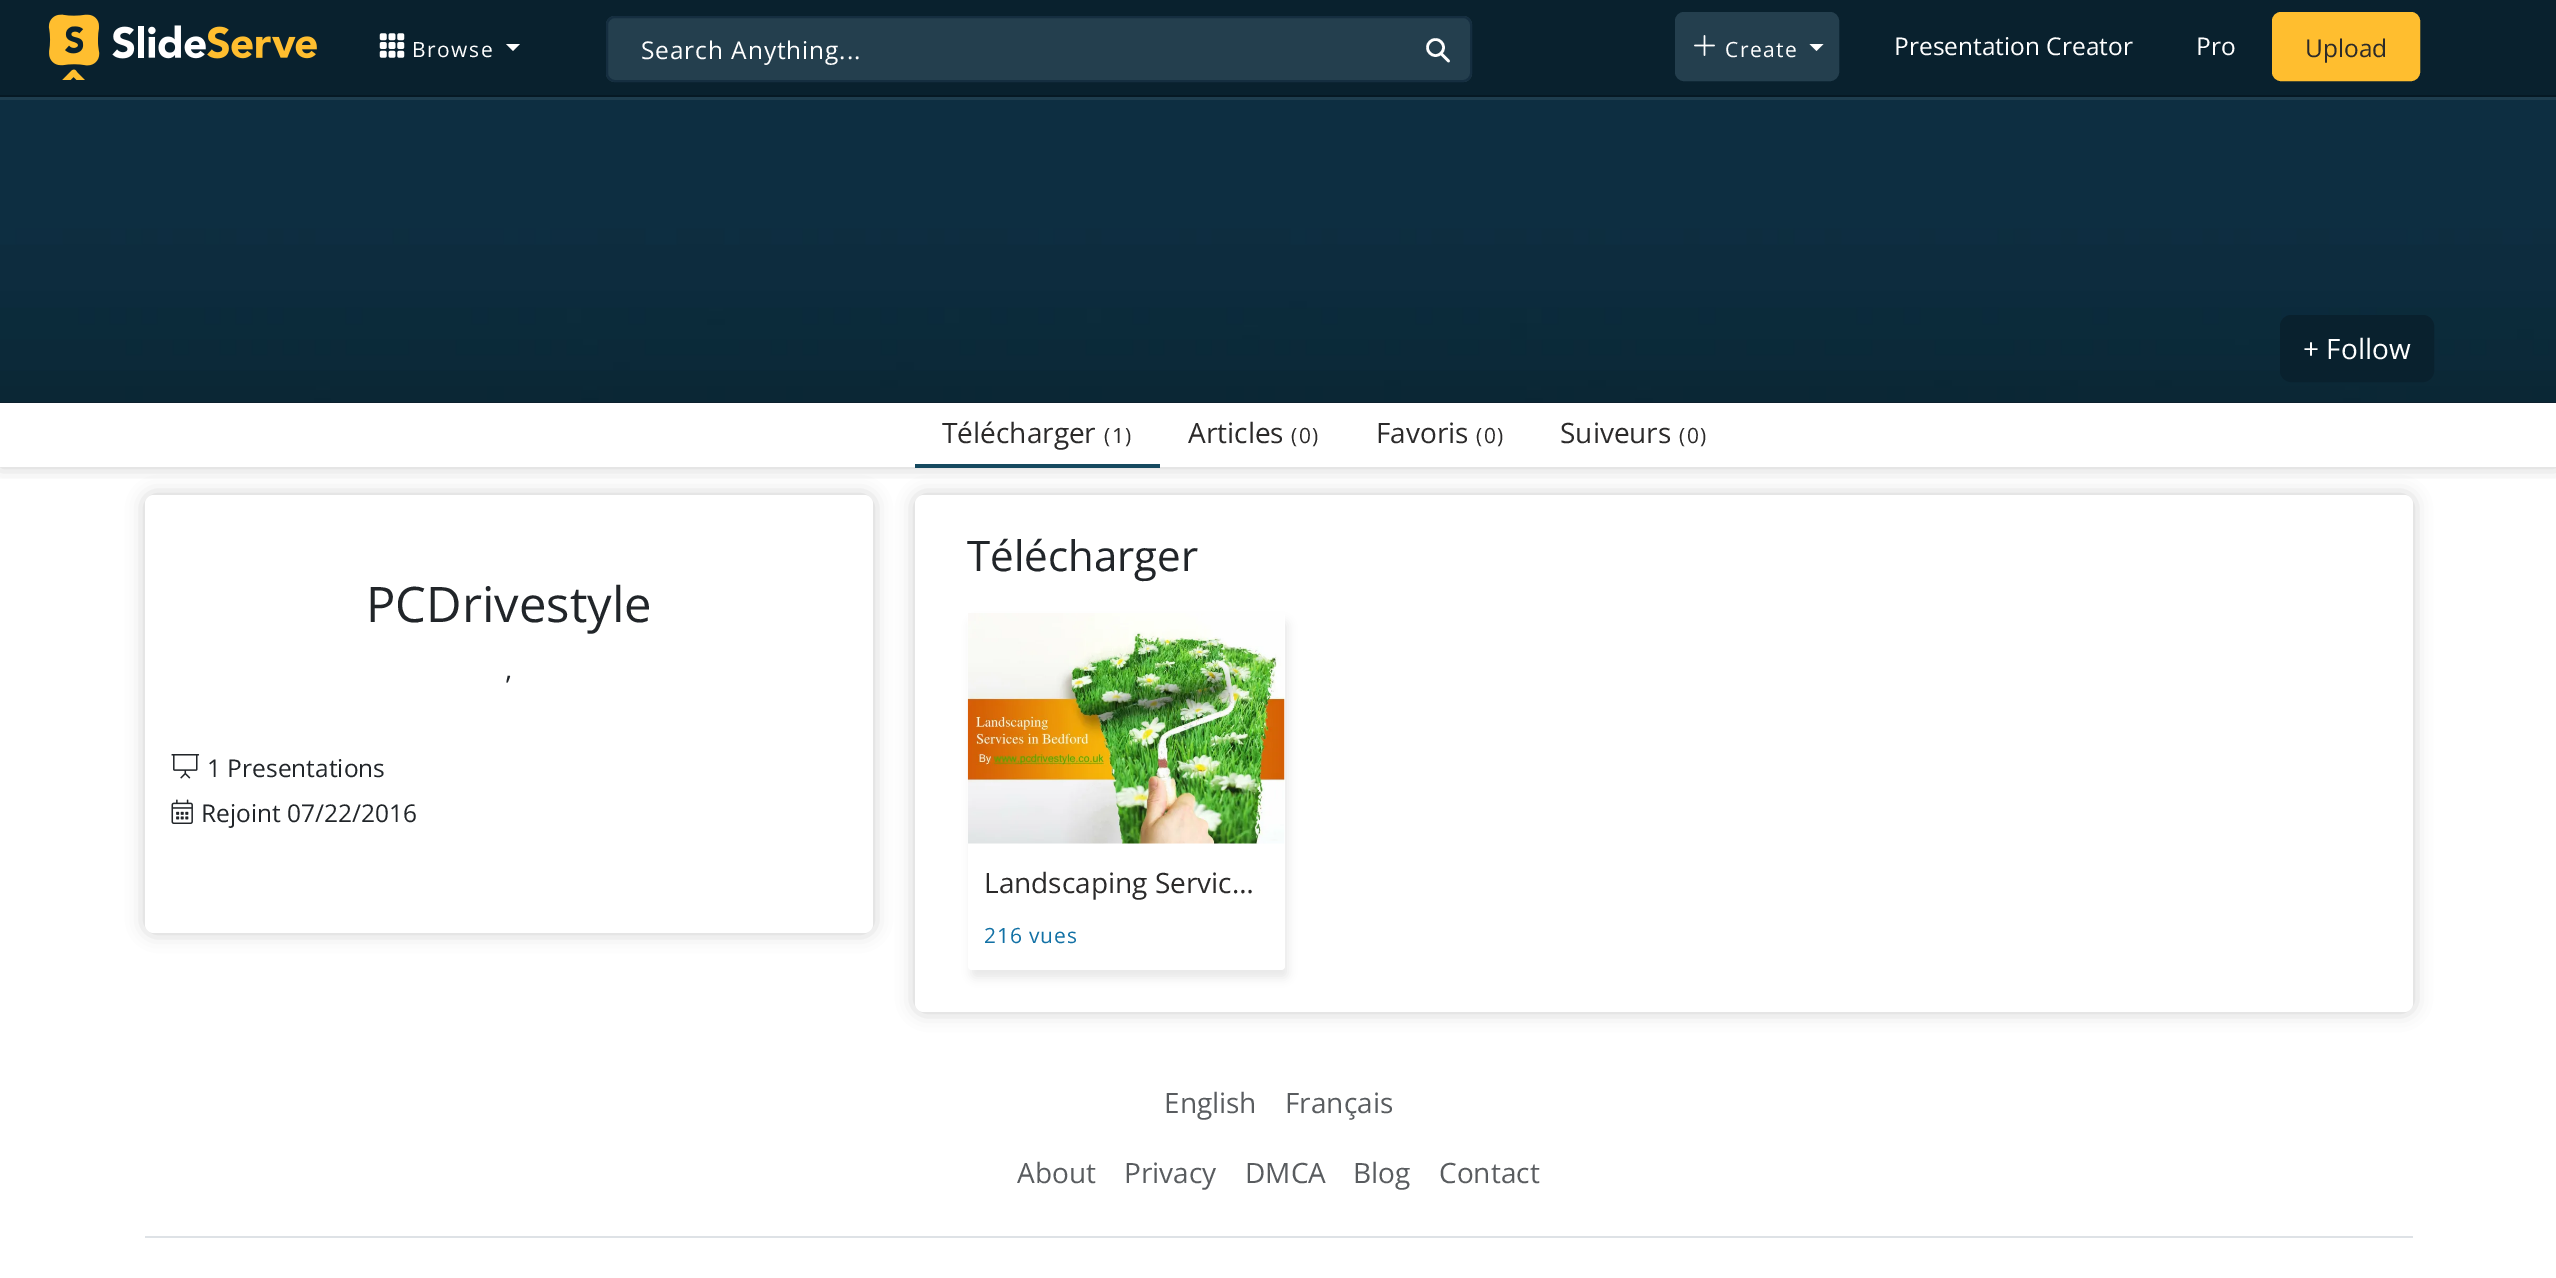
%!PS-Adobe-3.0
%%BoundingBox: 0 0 2556 1278
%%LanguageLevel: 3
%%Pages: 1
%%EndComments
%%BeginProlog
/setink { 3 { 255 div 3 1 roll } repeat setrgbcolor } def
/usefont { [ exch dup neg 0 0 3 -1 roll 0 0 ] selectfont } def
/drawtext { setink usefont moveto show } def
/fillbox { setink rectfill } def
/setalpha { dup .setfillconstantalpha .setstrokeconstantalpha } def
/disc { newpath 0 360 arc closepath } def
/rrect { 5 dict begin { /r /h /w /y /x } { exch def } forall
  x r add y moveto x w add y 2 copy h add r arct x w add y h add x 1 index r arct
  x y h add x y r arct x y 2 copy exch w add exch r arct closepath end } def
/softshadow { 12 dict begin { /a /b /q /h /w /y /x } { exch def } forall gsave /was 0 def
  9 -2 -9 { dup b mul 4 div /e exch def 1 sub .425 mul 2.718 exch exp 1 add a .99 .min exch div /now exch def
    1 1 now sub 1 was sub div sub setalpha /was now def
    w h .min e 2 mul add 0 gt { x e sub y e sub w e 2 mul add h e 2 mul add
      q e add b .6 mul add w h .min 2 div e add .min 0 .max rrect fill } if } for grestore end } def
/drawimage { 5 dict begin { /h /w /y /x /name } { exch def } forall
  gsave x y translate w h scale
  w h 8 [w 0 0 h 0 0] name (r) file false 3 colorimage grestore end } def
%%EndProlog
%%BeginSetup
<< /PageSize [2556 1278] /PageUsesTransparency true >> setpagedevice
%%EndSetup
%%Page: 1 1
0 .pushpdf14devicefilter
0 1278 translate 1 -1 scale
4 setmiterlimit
0 0 2556 1278 255 255 255 fillbox
30 61 78 setink
0 96 moveto 0 100 lineto 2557 100 lineto 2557 4 lineto 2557 96 lineto closepath fill
0 0 2556 95 9 33 46 fillbox
0 95 2556 2 6 25 36 fillbox
(assets/img1.rgb) 48 14 269 66 drawimage
(assets/img2.rgb) 379 33 26 25 drawimage
/OpenSans-Regular 21 usefont
255 255 255 setink
412 57 moveto 1.5 0 (Browse) ashow
506 44 moveto 520 44 lineto 513 51 lineto closepath fill
36 63 78 setink
1676 13 162 67 8 rrect gsave fill grestore
2 setlinewidth
stroke
(assets/img3.rgb) 1694 35 21 21 drawimage
255 255 255 setink
1725 57 moveto 1.5 0 (Create) ashow
1809.5 44 moveto 1823.5 44 lineto 1816.5 51 lineto closepath fill
(Presentation Creator) 1894 55 /OpenSans-Regular 24.5 255 255 255 drawtext
(Pro) 2196 55 /OpenSans-Regular 24.5 255 255 255 drawtext
255 190 47 setink
2273 13 146 67 8 rrect gsave fill grestore
stroke
(Upload) 2305 57 /OpenSans-Regular 24.5 43 42 42 drawtext
36 63 78 setink
606 16 866 66 9 rrect fill
255 255 255 setink
2.6 setlinewidth
1435.5 47.5 8 disc stroke
1 setlinecap
1 setlinejoin
1448.5 61 moveto 1441.5 54 lineto stroke
21 46 64 setink
2 setlinewidth
0 setlinecap
0 setlinejoin
607 17 864 64 8 rrect stroke
255 255 255 setink
641 59 moveto 0.9 0 (Search Anything...) ashow
gsave
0 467 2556 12 rectclip
0 0 0 setink
0 403 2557 64 0 9 0.2 softshadow
grestore
0 402 2556 1 12 32 46 fillbox
(assets/img4.rgb) 0 100 2556 302 drawimage
9 33 46 setink
2281 316 152 65 10 rrect gsave fill grestore
stroke
(+ Follow) 2303 359 /OpenSans-Regular 28 255 255 255 drawtext
915 464 245 4 21 73 95 fillbox
(Télécharger) 942 443 /OpenSans-Regular 28 43 42 42 drawtext
/OpenSans-Regular 21 usefont
1104 443 moveto 1.5 0 (\(1\)) ashow
(Articles) 1188 443 /OpenSans-Regular 28 43 42 42 drawtext
/OpenSans-Regular 21 usefont
1291 443 moveto 1.5 0 (\(0\)) ashow
(Favoris) 1376 443 /OpenSans-Regular 28 43 42 42 drawtext
/OpenSans-Regular 21 usefont
1476 443 moveto 1.5 0 (\(0\)) ashow
(Suiveurs) 1560 443 /OpenSans-Regular 28 43 42 42 drawtext
/OpenSans-Regular 21 usefont
1679 443 moveto 1.5 0 (\(0\)) ashow
0 0 0 setink
145 495 728 438 9 9 0.2 softshadow
255 255 255 setink
145 495 728 438 9 rrect fill
(PCDrivestyle) 366 622 /OpenSans-Regular 49 33 37 41 drawtext
(,) 505 679 /OpenSans-Regular 28 33 37 41 drawtext
(assets/img5.rgb) 171 754 29 25 drawimage
(1 Presentations) 207 777 /OpenSans-Regular 24.5 33 37 41 drawtext
(assets/img6.rgb) 171 799 22 25 drawimage
(Rejoint 07/22/2016) 201 822 /OpenSans-Regular 24.5 33 37 41 drawtext
0 0 0 setink
915 495 1498 517 9 9 0.2 softshadow
255 255 255 setink
915 495 1498 517 9 rrect fill
(Télécharger) 967 571 /OpenSans-Regular 42 33 37 41 drawtext
199 199 199 setink
971 621 317 357 4 4.5 0.4 softshadow
255 255 255 setink
968 613 317 357 4 rrect fill
(assets/img7.rgb) 967 613 318 231 drawimage
(Landscaping Servic…) 984 893 /OpenSans-Regular 28 43 42 42 drawtext
/OpenSans-Regular 21 usefont
18 113 165 setink
984 943 moveto 0.9 0 (216 vues) ashow
(English) 1164 1113 /OpenSans-Regular 28 89 92 95 drawtext
(Français) 1285 1113 /OpenSans-Regular 28 89 92 95 drawtext
145 1236 2268 2 222 226 230 fillbox
(About) 1017 1183 /OpenSans-Regular 28 89 92 95 drawtext
(Privacy) 1124 1183 /OpenSans-Regular 28 89 92 95 drawtext
(DMCA) 1245 1183 /OpenSans-Regular 28 89 92 95 drawtext
(Blog) 1353 1183 /OpenSans-Regular 28 89 92 95 drawtext
(Contact) 1439 1183 /OpenSans-Regular 28 89 92 95 drawtext
.poppdf14devicefilter showpage
%%EOF
